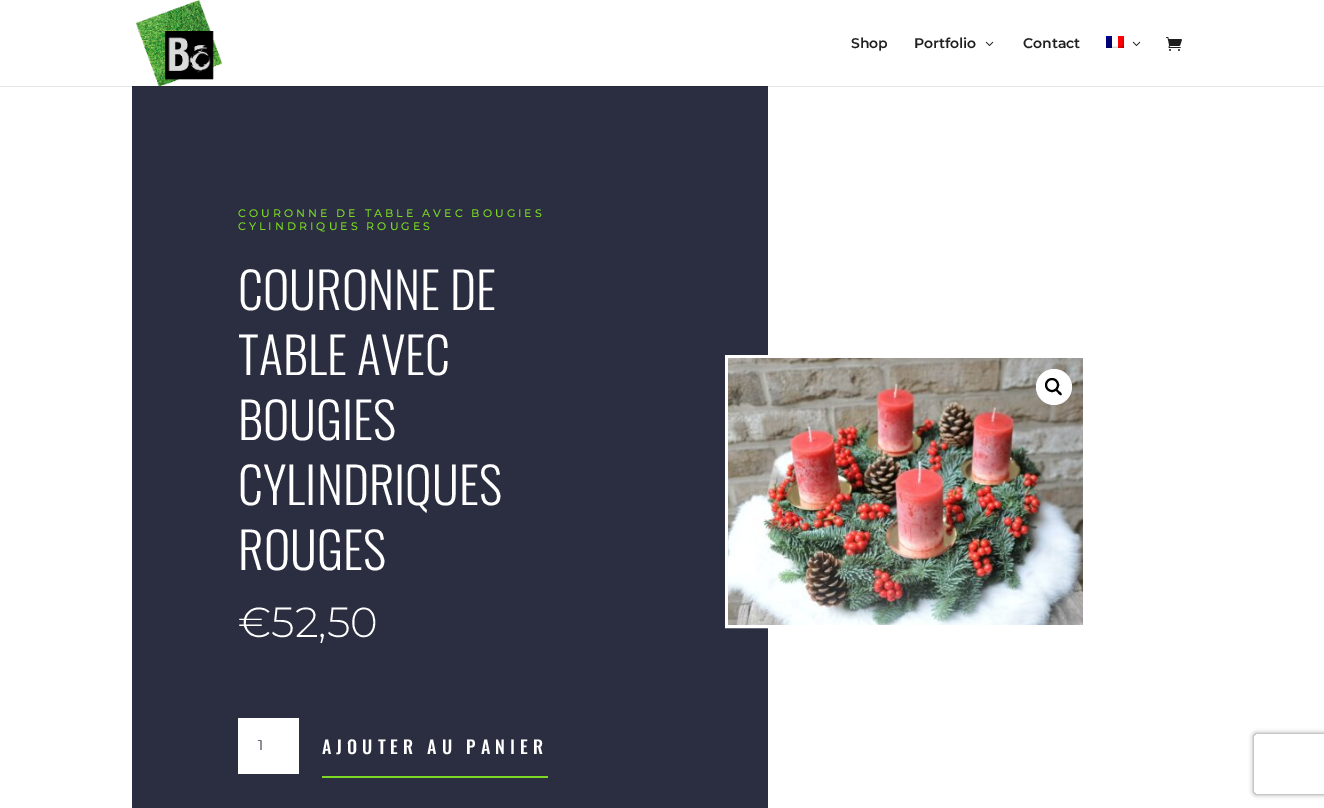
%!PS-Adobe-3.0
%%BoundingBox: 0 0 1324 808
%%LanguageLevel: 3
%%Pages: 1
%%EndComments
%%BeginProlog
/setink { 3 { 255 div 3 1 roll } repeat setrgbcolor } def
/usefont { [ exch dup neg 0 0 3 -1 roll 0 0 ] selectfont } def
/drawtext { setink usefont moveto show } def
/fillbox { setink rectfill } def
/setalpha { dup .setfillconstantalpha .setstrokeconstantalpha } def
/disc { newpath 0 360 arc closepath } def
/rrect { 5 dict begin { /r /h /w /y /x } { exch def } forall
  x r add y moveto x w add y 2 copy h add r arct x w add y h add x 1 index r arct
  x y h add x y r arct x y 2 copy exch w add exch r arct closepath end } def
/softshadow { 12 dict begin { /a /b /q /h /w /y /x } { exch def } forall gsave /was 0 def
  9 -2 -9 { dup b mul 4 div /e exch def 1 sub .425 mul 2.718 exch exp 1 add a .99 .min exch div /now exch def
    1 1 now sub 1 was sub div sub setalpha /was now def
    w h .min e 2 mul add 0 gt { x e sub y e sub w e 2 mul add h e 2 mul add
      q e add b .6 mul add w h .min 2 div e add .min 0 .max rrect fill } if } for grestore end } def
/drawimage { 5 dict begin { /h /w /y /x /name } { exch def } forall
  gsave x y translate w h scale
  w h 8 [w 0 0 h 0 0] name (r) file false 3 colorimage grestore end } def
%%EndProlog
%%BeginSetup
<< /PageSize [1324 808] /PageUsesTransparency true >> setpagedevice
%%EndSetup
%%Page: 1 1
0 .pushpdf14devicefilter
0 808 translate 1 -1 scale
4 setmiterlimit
0 0 1324 808 255 255 255 fillbox
0 86 1324 1 230 230 230 fillbox
(assets/img1.rgb) 136 0 86 86 drawimage
(Shop) 851 48 /Montserrat-SemiBold 14 31 31 31 drawtext
(Portfolio) 914 48 /Montserrat-SemiBold 14 31 31 31 drawtext
(assets/img2.rgb) 985 41 9 5 drawimage
(Contact) 1023 48 /Montserrat-SemiBold 14 31 31 31 drawtext
(assets/img3.rgb) 1106 36 18 12 drawimage
(assets/img2.rgb) 1132 41 9 5 drawimage
(assets/img4.rgb) 1166 37 16 14 drawimage
132 87 636 721 42 46 64 fillbox
132 86 636 1 38 41 58 fillbox
/Montserrat-Medium 11 usefont
124 218 36 setink
238 217 moveto 3 0 (COURONNE DE TABLE AVEC BOUGIES) ashow
238 230 moveto 3 0 (CYLINDRIQUES ROUGES) ashow
(COURONNE DE) 238 310 /Oswald-Light 50 255 255 255 drawtext
(TABLE AVEC) 238 375 /Oswald-Light 50 255 255 255 drawtext
(BOUGIES) 238 440 /Oswald-Light 50 255 255 255 drawtext
(CYLINDRIQUES) 238 505 /Oswald-Light 50 255 255 255 drawtext
(ROUGES) 238 570 /Oswald-Light 50 255 255 255 drawtext
(€52,50) 238 637 /Montserrat-Light 42 255 255 255 drawtext
238 718 61 56 255 255 255 fillbox
(1) 258 750 /Montserrat-Regular 14 42 46 64 drawtext
322 776 226 2 124 218 36 fillbox
/Oswald-Medium 18 usefont
255 255 255 setink
322 754 moveto 5 0 (AJOUTER AU PANIER) ashow
3 setlinewidth
726.5 356.5 358 270 rectstroke
(assets/img5.rgb) 728 358 355 267 drawimage
1054 387 18 disc fill
0 0 0 setink
2 setlinewidth
1052 385 6 disc stroke
1056 389.5 moveto 1057 388 1058.5 391 1059.5 391.5 curveto 1060 392 1062.5 393.5 1061.5 395 curveto 1060.5 396 1058.5 393.5 1058 393 curveto 1057.5 392 1054.5 390.5 1056 389.5 curveto closepath fill
gsave
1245 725 moveto 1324 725 lineto 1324 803 lineto 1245 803 lineto closepath 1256 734 moveto 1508 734 lineto 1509 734 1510 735 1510 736 curveto 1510 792 lineto 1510 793 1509 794 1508 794 curveto 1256 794 lineto 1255 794 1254 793 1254 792 curveto 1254 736 lineto 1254 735 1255 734 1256 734 curveto closepath eoclip newpath
128 128 128 setink
1254 734 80 60 2 2.5 1 softshadow
grestore
.poppdf14devicefilter showpage
%%EOF
